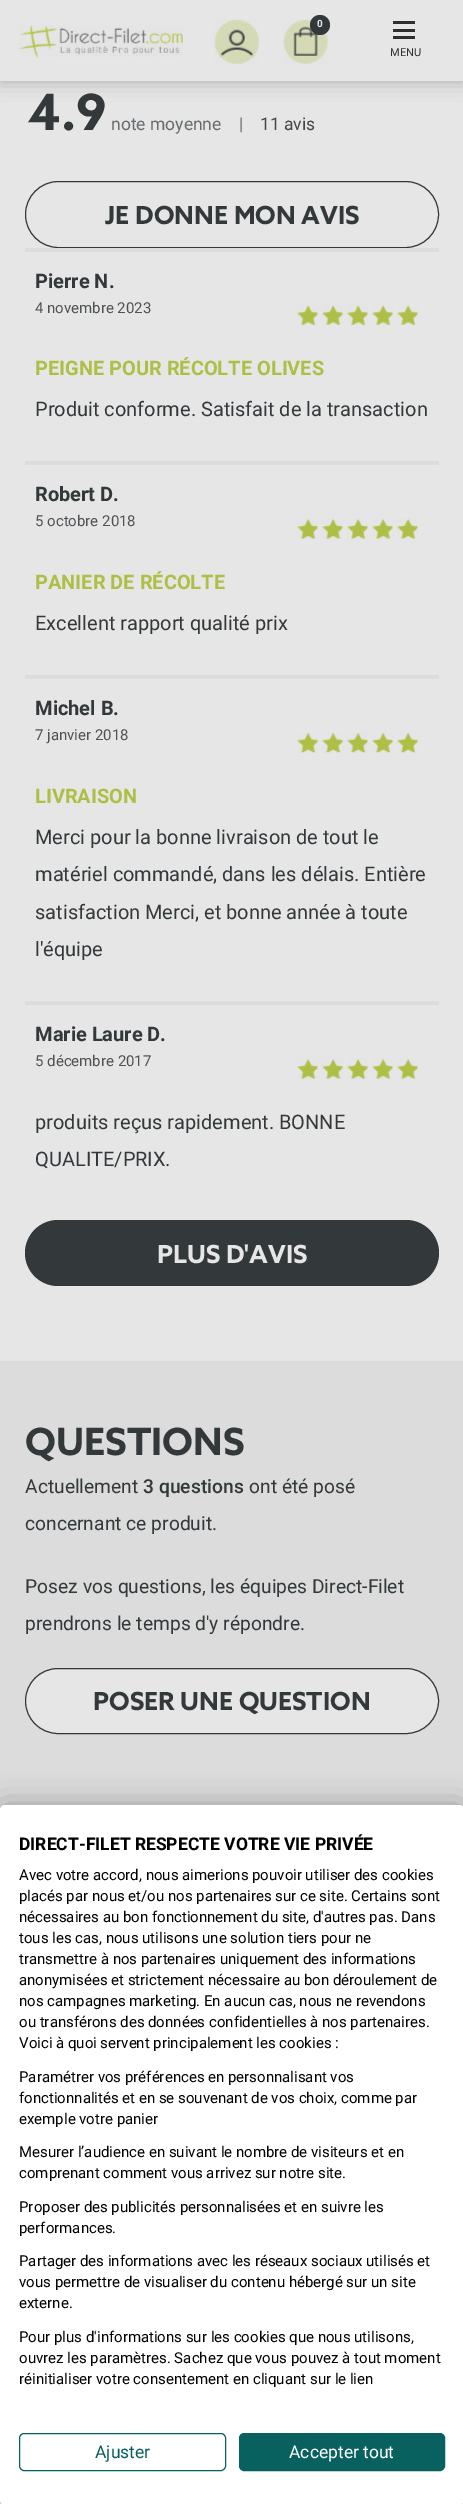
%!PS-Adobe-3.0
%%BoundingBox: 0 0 463 2504
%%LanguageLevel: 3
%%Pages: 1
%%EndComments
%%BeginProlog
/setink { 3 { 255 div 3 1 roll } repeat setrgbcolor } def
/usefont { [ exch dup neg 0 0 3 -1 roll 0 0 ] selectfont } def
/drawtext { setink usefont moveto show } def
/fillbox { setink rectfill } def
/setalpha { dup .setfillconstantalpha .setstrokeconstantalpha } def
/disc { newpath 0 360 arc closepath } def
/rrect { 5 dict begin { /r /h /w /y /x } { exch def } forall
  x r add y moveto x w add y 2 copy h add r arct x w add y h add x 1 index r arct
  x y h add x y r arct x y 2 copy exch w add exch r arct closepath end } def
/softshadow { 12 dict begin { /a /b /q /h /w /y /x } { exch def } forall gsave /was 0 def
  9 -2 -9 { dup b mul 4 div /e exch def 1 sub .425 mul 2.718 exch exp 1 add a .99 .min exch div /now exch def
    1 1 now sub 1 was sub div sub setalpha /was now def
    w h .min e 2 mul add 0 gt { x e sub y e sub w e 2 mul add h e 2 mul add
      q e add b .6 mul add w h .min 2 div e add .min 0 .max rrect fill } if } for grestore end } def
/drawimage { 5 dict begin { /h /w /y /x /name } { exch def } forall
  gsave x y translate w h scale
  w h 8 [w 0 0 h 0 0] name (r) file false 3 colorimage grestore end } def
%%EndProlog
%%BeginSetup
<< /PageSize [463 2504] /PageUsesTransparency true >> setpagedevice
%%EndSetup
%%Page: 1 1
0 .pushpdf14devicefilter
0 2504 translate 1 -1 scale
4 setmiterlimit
0 0 463 2504 230 230 230 fillbox
168 169 170 setink
0 0 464 81 0 9.5 1 softshadow
0 0 463 81 230 230 230 fillbox
(assets/img1.rgb) 214 19 45 45 drawimage
(assets/img2.rgb) 283 19 45 45 drawimage
51 56 59 setink
320 25 10 disc fill
(0) 317 27 /Roboto-Bold 10 230 230 230 drawtext
(assets/img3.rgb) 19 25 164 33 drawimage
393 21 22 3 46 46 46 fillbox
393 29 22 3 46 46 46 fillbox
393 36 22 3 46 46 46 fillbox
(MENU) 390 56 /Roboto-Regular 11 46 46 46 drawtext
(4.9) 28 130 /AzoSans-Bold 50 51 56 59 drawtext
(note moyenne) 111 130 /Roboto-Regular 17.5 104 108 111 drawtext
(|) 239 130 /Roboto-Regular 17.5 104 108 111 drawtext
(11 avis) 260 130 /Roboto-Regular 17.5 69 69 69 drawtext
51 56 59 setink
25.5 181.5 413 66 33 rrect stroke
(JE DONNE MON AVIS) 105 224 /AzoSans-Bold 25 51 56 59 drawtext
25 248 414 4 220 220 220 fillbox
(Pierre N.) 35 288 /Roboto-Bold 20 51 56 59 drawtext
(4 novembre 2023) 35 313 /Roboto-Regular 15 78 82 85 drawtext
(assets/img4.rgb) 297 304 21 21 drawimage
(assets/img4.rgb) 322 304 21 21 drawimage
(assets/img4.rgb) 347 304 21 21 drawimage
(assets/img4.rgb) 372 304 21 21 drawimage
(assets/img4.rgb) 397 304 21 21 drawimage
(PEIGNE POUR RÉCOLTE OLIVES) 35 375 /Roboto-Bold 20 175 191 70 drawtext
(Produit conforme. Satisfait de la transaction) 35 416 /Roboto-Regular 20 51 56 59 drawtext
25 461 414 4 220 220 220 fillbox
(Robert D.) 35 501 /Roboto-Bold 20 51 56 59 drawtext
(5 octobre 2018) 35 526 /Roboto-Regular 15 78 82 85 drawtext
(assets/img5.rgb) 297 518 21 21 drawimage
(assets/img5.rgb) 322 518 21 21 drawimage
(assets/img5.rgb) 347 518 21 21 drawimage
(assets/img5.rgb) 372 518 21 21 drawimage
(assets/img5.rgb) 397 518 21 21 drawimage
(PANIER DE RÉCOLTE) 35 589 /Roboto-Bold 20 175 191 70 drawtext
(Excellent rapport qualité prix) 35 630 /Roboto-Regular 20 51 56 59 drawtext
25 675 414 4 220 220 220 fillbox
(Michel B.) 35 715 /Roboto-Bold 20 51 56 59 drawtext
(7 janvier 2018) 35 740 /Roboto-Regular 15 78 82 85 drawtext
(assets/img6.rgb) 297 732 21 21 drawimage
(assets/img6.rgb) 322 732 21 21 drawimage
(assets/img6.rgb) 347 732 21 21 drawimage
(assets/img6.rgb) 372 732 21 21 drawimage
(assets/img6.rgb) 397 732 21 21 drawimage
(LIVRAISON) 35 803 /Roboto-Bold 20 175 191 70 drawtext
(Merci pour la bonne livraison de tout le) 35 844 /Roboto-Regular 20 51 56 59 drawtext
(matériel commandé, dans les délais. Entière) 35 881 /Roboto-Regular 20 51 56 59 drawtext
(satisfaction Merci, et bonne année à toute) 35 919 /Roboto-Regular 20 51 56 59 drawtext
(l'équipe) 35 956 /Roboto-Regular 20 51 56 59 drawtext
25 1001 414 4 220 220 220 fillbox
(Marie Laure D.) 35 1041 /Roboto-Bold 20 51 56 59 drawtext
(5 décembre 2017) 35 1066 /Roboto-Regular 15 78 82 85 drawtext
(assets/img5.rgb) 297 1058 21 21 drawimage
(assets/img5.rgb) 322 1058 21 21 drawimage
(assets/img5.rgb) 347 1058 21 21 drawimage
(assets/img5.rgb) 372 1058 21 21 drawimage
(assets/img5.rgb) 397 1058 21 21 drawimage
(produits reçus rapidement. BONNE) 35 1129 /Roboto-Regular 20 51 56 59 drawtext
(QUALITE/PRIX.) 35 1166 /Roboto-Regular 20 51 56 59 drawtext
25 1220 414 66 33 rrect fill
(PLUS D'AVIS) 157 1263 /AzoSans-Bold 25 230 230 230 drawtext
0 1361 463 449 220 220 220 fillbox
(QUESTIONS) 25 1455 /AzoSans-Bold 37.5 51 56 59 drawtext
(Actuellement) 25 1493 /Roboto-Regular 19.25 51 56 59 drawtext
(3 questions) 143 1493 /Roboto-Medium 19.25 51 56 59 drawtext
(ont été posé) 249 1493 /Roboto-Regular 19.25 51 56 59 drawtext
(concernant ce produit.) 25 1530 /Roboto-Regular 19.25 51 56 59 drawtext
(Posez vos questions, les équipes Direct-Filet) 25 1593 /Roboto-Regular 19.25 51 56 59 drawtext
(prendrons le temps d'y répondre.) 25 1630 /Roboto-Regular 19.25 51 56 59 drawtext
230 230 230 setink
25.5 1668.5 413 65 32.5 rrect gsave fill grestore
51 56 59 setink
stroke
(POSER UNE QUESTION) 93 1710 /AzoSans-Bold 25 51 56 59 drawtext
0 0 0 setink
0 1805 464 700 5 15 0.3 softshadow
255 255 255 setink
0 1805 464 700 5 rrect fill
(DIRECT-FILET RESPECTE VOTRE VIE PRIVÉE) 19 1850 /Roboto-Bold 17.5 0 0 0 drawtext
(Avec votre accord, nous aimerions pouvoir utiliser des cookies) 19 1880 /Roboto-Regular 15 0 0 0 drawtext
(placés par nous et/ou nos partenaires sur ce site. Certains sont) 19 1901 /Roboto-Regular 15 0 0 0 drawtext
(nécessaires au bon fonctionnement du site, d'autres pas. Dans) 19 1922 /Roboto-Regular 15 0 0 0 drawtext
(tous les cas, nous utilisons une solution tiers pour ne) 19 1943 /Roboto-Regular 15 0 0 0 drawtext
(transmettre à nos partenaires uniquement des informations) 19 1964 /Roboto-Regular 15 0 0 0 drawtext
(anonymisées et strictement nécessaire au bon déroulement de) 19 1985 /Roboto-Regular 15 0 0 0 drawtext
(nos campagnes marketing. En aucun cas, nous ne revendons) 19 2006 /Roboto-Regular 15 0 0 0 drawtext
(ou transférons des données confidentielles à nos partenaires.) 19 2027 /Roboto-Regular 15 0 0 0 drawtext
(Voici à quoi servent principalement les cookies :) 19 2048 /Roboto-Regular 15 0 0 0 drawtext
(Paramétrer vos préférences en personnalisant vos) 19 2082 /Roboto-Regular 15 0 0 0 drawtext
(fonctionnalités et en se souvenant de vos choix, comme par) 19 2103 /Roboto-Regular 15 0 0 0 drawtext
(exemple votre panier) 19 2124 /Roboto-Regular 15 0 0 0 drawtext
(Mesurer l’audience en suivant le nombre de visiteurs et en) 19 2157 /Roboto-Regular 15 0 0 0 drawtext
(comprenant comment vous arrivez sur notre site.) 19 2178 /Roboto-Regular 15 0 0 0 drawtext
(Proposer des publicités personnalisées et en suivre les) 19 2212 /Roboto-Regular 15 0 0 0 drawtext
(performances.) 19 2233 /Roboto-Regular 15 0 0 0 drawtext
(Partager des informations avec les réseaux sociaux utilisés et) 19 2266 /Roboto-Regular 15 0 0 0 drawtext
(vous permettre de visualiser du contenu hébergé sur un site) 19 2287 /Roboto-Regular 15 0 0 0 drawtext
(externe.) 19 2308 /Roboto-Regular 15 0 0 0 drawtext
(Pour plus d'informations sur les cookies que nous utilisons,) 19 2342 /Roboto-Regular 15 0 0 0 drawtext
(ouvrez les paramètres. Sachez que vous pouvez à tout moment) 19 2363 /Roboto-Regular 15 0 0 0 drawtext
(réinitialiser votre consentement en cliquant sur le lien) 19 2384 /Roboto-Regular 15 0 0 0 drawtext
8 96 95 setink
19.5 2433.5 206 37 4.5 rrect stroke
(Ajuster) 95 2458 /Roboto-Regular 17.5 8 96 95 drawtext
239.5 2433.5 205 37 4.5 rrect gsave fill grestore
stroke
(Accepter tout) 289 2458 /Roboto-Regular 17.5 255 255 255 drawtext
.poppdf14devicefilter showpage
%%EOF
